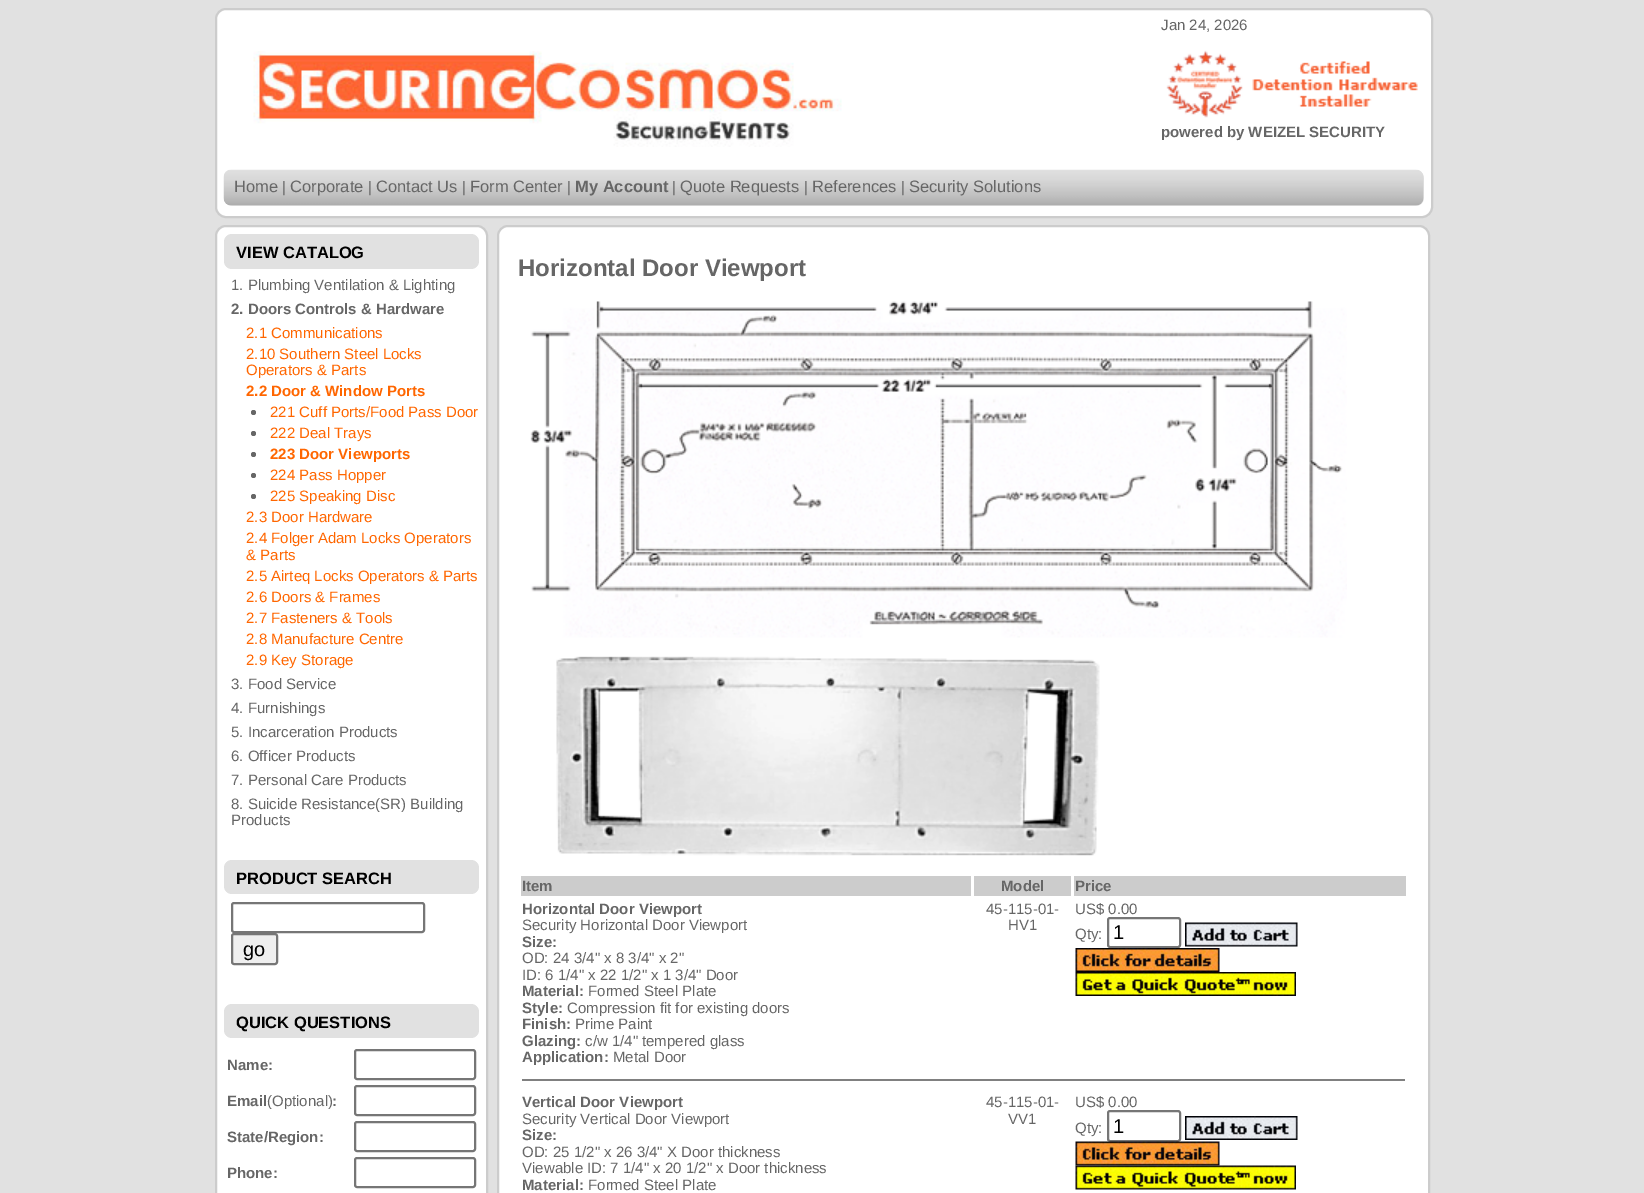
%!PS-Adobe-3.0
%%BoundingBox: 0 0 1644 1193
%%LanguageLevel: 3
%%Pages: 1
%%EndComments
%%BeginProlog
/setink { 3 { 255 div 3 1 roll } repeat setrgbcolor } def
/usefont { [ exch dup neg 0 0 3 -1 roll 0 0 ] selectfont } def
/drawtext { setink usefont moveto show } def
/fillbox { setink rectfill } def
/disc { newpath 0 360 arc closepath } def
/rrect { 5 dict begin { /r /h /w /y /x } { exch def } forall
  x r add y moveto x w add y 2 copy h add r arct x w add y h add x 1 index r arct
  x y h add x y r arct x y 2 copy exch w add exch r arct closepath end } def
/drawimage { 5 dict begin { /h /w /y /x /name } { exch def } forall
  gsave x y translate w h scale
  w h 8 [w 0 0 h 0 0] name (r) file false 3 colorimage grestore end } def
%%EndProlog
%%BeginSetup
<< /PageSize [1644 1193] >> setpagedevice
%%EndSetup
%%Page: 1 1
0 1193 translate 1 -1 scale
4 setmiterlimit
0 0 1644 1193 225 225 225 fillbox
255 255 255 setink
216 9 1216 208 10 rrect gsave fill grestore
204 204 204 setink
2 setlinewidth
stroke
(assets/img1.rgb) 253 51 589 96 drawimage
(Jan 24, 2026) 1161 30 /LiberationSans-Regular 15 102 102 102 drawtext
(assets/img2.rgb) 1166 50 252 68 drawimage
(powered by WEIZEL SECURITY) 1161 137 /LiberationSans-Bold 15 102 102 102 drawtext
225 225 225 setink
224 170 1200 36 8 rrect fill
(assets/img3.rgb) 223 169 1201 37 drawimage
(Home) 234 192 /LiberationSans-Regular 16.5 102 102 102 drawtext
(|) 282 192 /LiberationSans-Regular 15 102 102 102 drawtext
(Corporate) 290 192 /LiberationSans-Regular 16.5 102 102 102 drawtext
(|) 368 192 /LiberationSans-Regular 15 102 102 102 drawtext
(Contact Us) 376 192 /LiberationSans-Regular 16.5 102 102 102 drawtext
(|) 462 192 /LiberationSans-Regular 15 102 102 102 drawtext
(Form Center) 470 192 /LiberationSans-Regular 16.5 102 102 102 drawtext
(|) 567 192 /LiberationSans-Regular 15 102 102 102 drawtext
(My Account) 575 192 /LiberationSans-Bold 16.5 102 102 102 drawtext
(|) 672 192 /LiberationSans-Regular 15 102 102 102 drawtext
(Quote Requests) 680 192 /LiberationSans-Regular 16.5 102 102 102 drawtext
(|) 804 192 /LiberationSans-Regular 15 102 102 102 drawtext
(References) 812 192 /LiberationSans-Regular 16.5 102 102 102 drawtext
(|) 901 192 /LiberationSans-Regular 15 102 102 102 drawtext
(Security Solutions) 909 192 /LiberationSans-Regular 16.5 102 102 102 drawtext
255 255 255 setink
216 226 271 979 10 rrect gsave fill grestore
204 204 204 setink
stroke
225 225 225 setink
224 234 255 35 8 rrect fill
(VIEW CATALOG) 236 258 /LiberationSans-Bold 16.5 0 0 0 drawtext
(1. Plumbing Ventilation & Lighting) 231 290 /LiberationSans-Regular 15 102 102 102 drawtext
(2. Doors Controls & Hardware) 231 314 /LiberationSans-Bold 15 102 102 102 drawtext
(2.1 Communications) 246 338 /LiberationSans-Regular 15 255 102 0 drawtext
(2.10 Southern Steel Locks) 246 359 /LiberationSans-Regular 15 255 102 0 drawtext
(Operators & Parts) 246 375 /LiberationSans-Regular 15 255 102 0 drawtext
(2.2 Door & Window Ports) 246 396 /LiberationSans-Bold 15 255 102 0 drawtext
102 102 102 setink
253.5 412.5 2.5 disc fill
(221 Cuff Ports/Food Pass Door) 270 417 /LiberationSans-Regular 15 255 102 0 drawtext
102 102 102 setink
253.5 433.5 2.5 disc fill
(222 Deal Trays) 270 438 /LiberationSans-Regular 15 255 102 0 drawtext
102 102 102 setink
253.5 454.5 2.5 disc fill
(223 Door Viewports) 270 459 /LiberationSans-Bold 15 255 102 0 drawtext
102 102 102 setink
253.5 475.5 2.5 disc fill
(224 Pass Hopper) 270 480 /LiberationSans-Regular 15 255 102 0 drawtext
102 102 102 setink
253.5 496.5 2.5 disc fill
(225 Speaking Disc) 270 501 /LiberationSans-Regular 15 255 102 0 drawtext
(2.3 Door Hardware) 246 522 /LiberationSans-Regular 15 255 102 0 drawtext
(2.4 Folger Adam Locks Operators) 246 543 /LiberationSans-Regular 15 255 102 0 drawtext
(& Parts) 246 560 /LiberationSans-Regular 15 255 102 0 drawtext
(2.5 Airteq Locks Operators & Parts) 246 581 /LiberationSans-Regular 15 255 102 0 drawtext
(2.6 Doors & Frames) 246 602 /LiberationSans-Regular 15 255 102 0 drawtext
(2.7 Fasteners & Tools) 246 623 /LiberationSans-Regular 15 255 102 0 drawtext
(2.8 Manufacture Centre) 246 644 /LiberationSans-Regular 15 255 102 0 drawtext
(2.9 Key Storage) 246 665 /LiberationSans-Regular 15 255 102 0 drawtext
(3. Food Service) 231 689 /LiberationSans-Regular 15 102 102 102 drawtext
(4. Furnishings) 231 713 /LiberationSans-Regular 15 102 102 102 drawtext
(5. Incarceration Products) 231 737 /LiberationSans-Regular 15 102 102 102 drawtext
(6. Officer Products) 231 761 /LiberationSans-Regular 15 102 102 102 drawtext
(7. Personal Care Products) 231 785 /LiberationSans-Regular 15 102 102 102 drawtext
(8. Suicide Resistance\(SR\) Building) 231 809 /LiberationSans-Regular 15 102 102 102 drawtext
(Products) 231 825 /LiberationSans-Regular 15 102 102 102 drawtext
225 225 225 setink
224 860 255 34 8 rrect fill
(PRODUCT SEARCH) 236 884 /LiberationSans-Bold 16.5 0 0 0 drawtext
118 118 118 setink
232 903 192 29 2 rrect stroke
239 239 239 setink
232 934 45 30 2 rrect gsave fill grestore
118 118 118 setink
stroke
(go) 243 956 /LiberationSans-Regular 20 0 0 0 drawtext
225 225 225 setink
224 1004 255 34 8 rrect fill
(QUICK QUESTIONS) 236 1028 /LiberationSans-Bold 16.5 0 0 0 drawtext
(Name:) 227 1070 /LiberationSans-Bold 15 102 102 102 drawtext
118 118 118 setink
355 1050 120 29 2 rrect stroke
(Email) 227 1106 /LiberationSans-Bold 15 102 102 102 drawtext
(\(Optional\)) 267 1106 /LiberationSans-Regular 15 102 102 102 drawtext
(:) 332 1106 /LiberationSans-Bold 15 102 102 102 drawtext
118 118 118 setink
355 1086 120 29 2 rrect stroke
(State/Region:) 227 1142 /LiberationSans-Bold 15 102 102 102 drawtext
118 118 118 setink
355 1122 120 29 2 rrect stroke
(Phone:) 227 1178 /LiberationSans-Bold 15 102 102 102 drawtext
118 118 118 setink
355 1158 120 29 2 rrect stroke
255 255 255 setink
498 226 931 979 10 rrect gsave fill grestore
204 204 204 setink
stroke
(Horizontal Door Viewport) 518 276 /LiberationSans-Bold 24 102 102 102 drawtext
(assets/img4.rgb) 530 301 817 337 drawimage
(assets/img5.rgb) 556 656 544 200 drawimage
521 876 450 20 204 204 204 fillbox
(Item) 522 891 /LiberationSans-Bold 15 102 102 102 drawtext
974 876 97 20 204 204 204 fillbox
(Model) 1001 891 /LiberationSans-Bold 15 102 102 102 drawtext
1074 876 332 20 204 204 204 fillbox
(Price) 1075 891 /LiberationSans-Bold 15 102 102 102 drawtext
(Horizontal Door Viewport) 522 914 /LiberationSans-Bold 15 102 102 102 drawtext
(Security Horizontal Door Viewport) 522 930 /LiberationSans-Regular 15 102 102 102 drawtext
(Size:) 522 947 /LiberationSans-Bold 15 102 102 102 drawtext
(OD: 24 3/4" x 8 3/4" x 2") 522 963 /LiberationSans-Regular 15 102 102 102 drawtext
(ID: 6 1/4" x 22 1/2" x 1 3/4" Door) 522 980 /LiberationSans-Regular 15 102 102 102 drawtext
(Material:) 522 996 /LiberationSans-Bold 15 102 102 102 drawtext
(Formed Steel Plate) 588 996 /LiberationSans-Regular 15 102 102 102 drawtext
(Style:) 522 1013 /LiberationSans-Bold 15 102 102 102 drawtext
(Compression fit for existing doors) 567 1013 /LiberationSans-Regular 15 102 102 102 drawtext
(Finish:) 522 1029 /LiberationSans-Bold 15 102 102 102 drawtext
(Prime Paint) 575 1029 /LiberationSans-Regular 15 102 102 102 drawtext
(Glazing:) 522 1046 /LiberationSans-Bold 15 102 102 102 drawtext
(c/w 1/4" tempered glass) 585 1046 /LiberationSans-Regular 15 102 102 102 drawtext
(Application:) 522 1062 /LiberationSans-Bold 15 102 102 102 drawtext
(Metal Door) 613 1062 /LiberationSans-Regular 15 102 102 102 drawtext
(45-115-01-) 986 914 /LiberationSans-Regular 15 102 102 102 drawtext
(HV1) 1008 930 /LiberationSans-Regular 15 102 102 102 drawtext
(US$ 0.00) 1075 914 /LiberationSans-Regular 15 102 102 102 drawtext
(Qty:) 1075 939 /LiberationSans-Regular 15 102 102 102 drawtext
118 118 118 setink
1108 918 72 29 2 rrect stroke
(1) 1113 939 /LiberationSans-Regular 20 0 0 0 drawtext
(assets/img6.rgb) 1185 922 113 25 drawimage
(assets/img7.rgb) 1075 948 145 24 drawimage
(assets/img8.rgb) 1075 972 221 24 drawimage
522 1079 883 2 128 128 128 fillbox
(Vertical Door Viewport) 522 1107 /LiberationSans-Bold 15 102 102 102 drawtext
(Security Vertical Door Viewport) 522 1124 /LiberationSans-Regular 15 102 102 102 drawtext
(Size:) 522 1140 /LiberationSans-Bold 15 102 102 102 drawtext
(OD: 25 1/2" x 26 3/4" X Door thickness) 522 1157 /LiberationSans-Regular 15 102 102 102 drawtext
(Viewable ID: 7 1/4" x 20 1/2" x Door thickness) 522 1173 /LiberationSans-Regular 15 102 102 102 drawtext
(Material:) 522 1190 /LiberationSans-Bold 15 102 102 102 drawtext
(Formed Steel Plate) 588 1190 /LiberationSans-Regular 15 102 102 102 drawtext
(45-115-01-) 986 1107 /LiberationSans-Regular 15 102 102 102 drawtext
(VV1) 1008 1124 /LiberationSans-Regular 15 102 102 102 drawtext
(US$ 0.00) 1075 1107 /LiberationSans-Regular 15 102 102 102 drawtext
(Qty:) 1075 1133 /LiberationSans-Regular 15 102 102 102 drawtext
118 118 118 setink
1108 1111 72 30 2 rrect stroke
(1) 1113 1133 /LiberationSans-Regular 20 0 0 0 drawtext
(assets/img9.rgb) 1185 1116 113 24 drawimage
(assets/img10.rgb) 1075 1141 145 25 drawimage
(assets/img11.rgb) 1075 1165 221 25 drawimage
showpage
%%EOF
